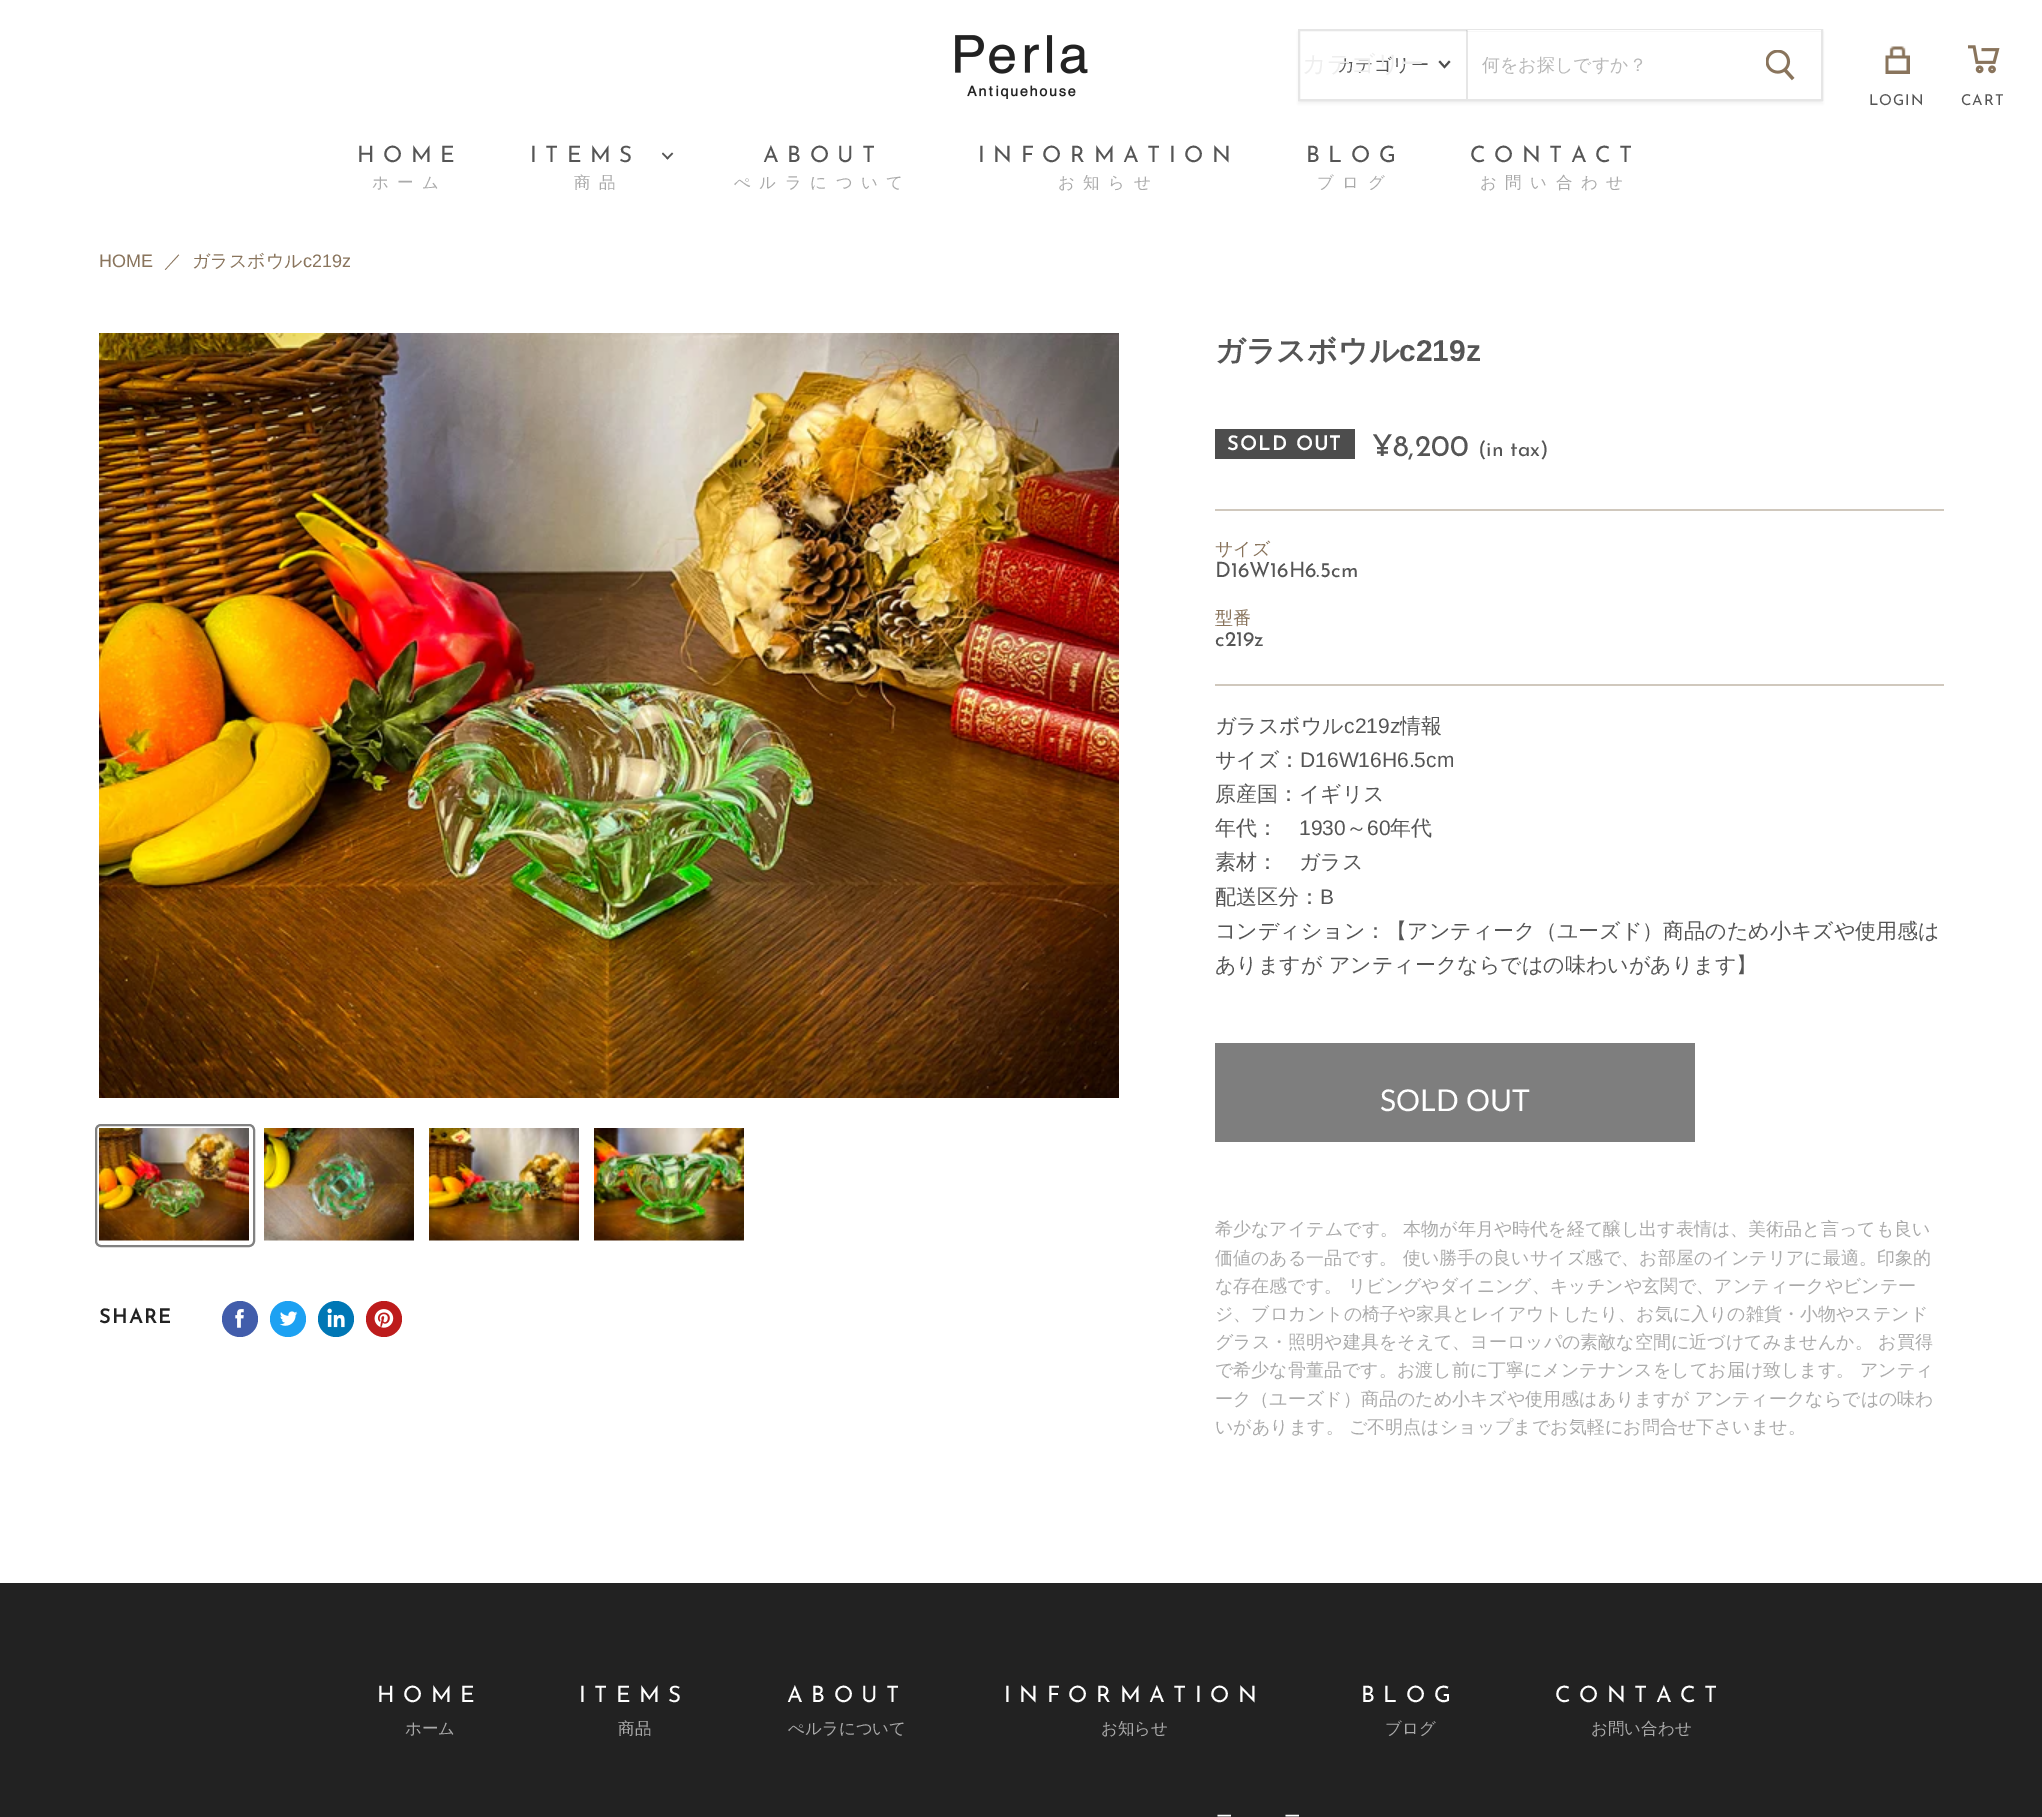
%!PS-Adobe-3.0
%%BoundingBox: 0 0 2042 1817
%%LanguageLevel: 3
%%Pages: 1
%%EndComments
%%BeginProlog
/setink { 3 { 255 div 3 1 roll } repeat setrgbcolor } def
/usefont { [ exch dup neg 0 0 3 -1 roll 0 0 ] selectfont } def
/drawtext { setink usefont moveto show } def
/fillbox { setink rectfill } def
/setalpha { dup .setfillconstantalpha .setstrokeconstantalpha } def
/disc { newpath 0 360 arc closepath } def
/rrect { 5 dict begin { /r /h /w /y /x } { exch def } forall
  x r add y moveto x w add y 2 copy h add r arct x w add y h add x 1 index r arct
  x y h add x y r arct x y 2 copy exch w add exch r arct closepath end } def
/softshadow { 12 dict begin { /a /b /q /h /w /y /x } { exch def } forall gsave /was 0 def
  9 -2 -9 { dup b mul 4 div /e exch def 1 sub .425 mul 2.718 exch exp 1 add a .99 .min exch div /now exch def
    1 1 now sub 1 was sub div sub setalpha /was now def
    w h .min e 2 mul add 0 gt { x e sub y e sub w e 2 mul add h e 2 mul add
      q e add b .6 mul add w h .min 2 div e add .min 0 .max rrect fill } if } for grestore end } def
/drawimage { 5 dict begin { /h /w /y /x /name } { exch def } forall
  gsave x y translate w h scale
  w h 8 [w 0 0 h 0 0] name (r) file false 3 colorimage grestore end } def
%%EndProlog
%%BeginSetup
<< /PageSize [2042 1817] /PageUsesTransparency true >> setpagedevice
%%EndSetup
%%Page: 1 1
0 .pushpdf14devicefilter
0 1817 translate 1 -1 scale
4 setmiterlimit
0 0 2042 1817 255 255 255 fillbox
(assets/img1.rgb) 955 35 133 64 drawimage
gsave
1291 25 moveto 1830 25 lineto 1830 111 lineto 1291 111 lineto closepath 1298 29 moveto 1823 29 lineto 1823 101 lineto 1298 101 lineto closepath eoclip newpath
128 128 128 setink
1298 32 525 72 0 2 0.11 softshadow
grestore
0.2 setalpha
128 128 128 setink
2 setlinewidth
1299 30 523 70 rectstroke
1 setalpha
1467 30 354 1 255 255 255 fillbox
0.2 setalpha
1466 30 2 69 128 128 128 fillbox
1 setalpha
(カテゴリー) 1337 71 /WenQuanYiZenHei-Medium 18 85 85 85 drawtext
(カテゴリー) 1302 72 /WenQuanYiZenHei-Medium 24 238 238 238 drawtext
77 77 77 setink
1.9 setlinewidth
2 setlinecap
1444.5 67 moveto 1449 62 lineto 1444.5 67 moveto 1440 62 lineto stroke
(assets/img2.rgb) 1766 50 29 31 drawimage
(何をお探しですか？) 1482 71 /WenQuanYiZenHei-Medium 18 184 184 184 drawtext
(assets/img3.rgb) 1885 46 25 28 drawimage
/JosefinSans-Regular 15 usefont
85 85 85 setink
1869 105 moveto 1 0 (LOGIN) ashow
(assets/img4.rgb) 1968 45 32 29 drawimage
1961 105 moveto 1 0 (CART) ashow
/JosefinSans-Regular 22.5 usefont
357 162 moveto 8.5 0 (HOME) ashow
/WenQuanYiZenHei-Medium 16.5 usefont
170 170 170 setink
372 188 moveto 8.5 0 (ホーム) ashow
/JosefinSans-Regular 22.5 usefont
85 85 85 setink
530 162 moveto 8.5 0 (ITEMS) ashow
(assets/img5.rgb) 662 152 12 8 drawimage
/WenQuanYiZenHei-Medium 16.5 usefont
170 170 170 setink
574 188 moveto 8.5 0 (商品) ashow
/JosefinSans-Regular 22.5 usefont
85 85 85 setink
763 162 moveto 8.5 0 (ABOUT) ashow
/WenQuanYiZenHei-Medium 16.5 usefont
170 170 170 setink
734 188 moveto 8.5 0 (ぺルラについて) ashow
/JosefinSans-Regular 22.5 usefont
85 85 85 setink
978 162 moveto 8.5 0 (INFORMATION) ashow
/WenQuanYiZenHei-Medium 16.5 usefont
170 170 170 setink
1058 188 moveto 8.5 0 (お知らせ) ashow
/JosefinSans-Regular 22.5 usefont
85 85 85 setink
1306 162 moveto 8.5 0 (BLOG) ashow
/WenQuanYiZenHei-Medium 16.5 usefont
170 170 170 setink
1317 188 moveto 8.5 0 (ブログ) ashow
/JosefinSans-Regular 22.5 usefont
85 85 85 setink
1470 162 moveto 8.5 0 (CONTACT) ashow
/WenQuanYiZenHei-Medium 16.5 usefont
170 170 170 setink
1480 188 moveto 8.5 0 (お問い合わせ) ashow
(HOME) 99 267 /LiberationSans-Regular 18 137 116 92 drawtext
(／) 164 267 /WenQuanYiZenHei-Medium 18 137 116 92 drawtext
(ガラスボウル) 192 267 /WenQuanYiZenHei-Medium 18 137 116 92 drawtext
(c219z) 303 267 /LiberationSans-Regular 18 137 116 92 drawtext
(assets/img6.rgb) 99 333 1020 765 drawimage
129 129 129 setink
2 setlinewidth
0 setlinecap
96 1125 158 121 5 rrect stroke
(assets/img7.rgb) 99 1128 150 113 drawimage
(assets/img8.rgb) 264 1128 150 113 drawimage
(assets/img9.rgb) 429 1128 150 113 drawimage
(assets/img10.rgb) 594 1128 150 113 drawimage
/JosefinSans-Bold 19.5 usefont
34 34 34 setink
99 1323 moveto 1.5 0 (SHARE) ashow
66 93 171 setink
240 1319 18 disc fill
(assets/img11.rgb) 235 1309 9 19 drawimage
29 161 242 setink
288 1319 18 disc fill
(assets/img12.rgb) 279 1311 19 15 drawimage
0 119 181 setink
336 1319 18 disc fill
(assets/img13.rgb) 327 1308 18 20 drawimage
189 28 28 setink
384 1319 18 disc fill
(assets/img14.rgb) 374 1309 20 19 drawimage
(ガラスボウル) 1215 361 /WenQuanYiZenHei-Bold 30 85 85 85 drawtext
(c219z) 1399 361 /LiberationSans-Bold 30 85 85 85 drawtext
1215 429 140 30 77 77 77 fillbox
/JosefinSans-Bold 19.5 usefont
255 255 255 setink
1227 450 moveto 1.5 0 (SOLD OUT) ashow
(¥8,200) 1372 456 /JosefinSans-Regular 30 85 85 85 drawtext
(\(in tax\)) 1478 456 /JosefinSans-Regular 21 85 85 85 drawtext
1215 509 729 2 208 200 189 fillbox
1215 684 729 2 208 200 189 fillbox
(サイズ) 1215 555 /WenQuanYiZenHei-Medium 18 137 116 92 drawtext
(D16W16H6.5cm) 1215 577 /JosefinSans-Regular 21 85 85 85 drawtext
(型番) 1215 624 /WenQuanYiZenHei-Medium 18 137 116 92 drawtext
(c219z) 1215 646 /JosefinSans-Regular 21 85 85 85 drawtext
(ガラスボウル) 1215 733 /WenQuanYiZenHei-Medium 21 85 85 85 drawtext
(c219z) 1344 733 /LiberationSans-Regular 21 85 85 85 drawtext
(情報) 1400 733 /WenQuanYiZenHei-Medium 21 85 85 85 drawtext
(サイズ：) 1215 767 /WenQuanYiZenHei-Medium 21 85 85 85 drawtext
(D16W16H6.5cm) 1300 767 /LiberationSans-Regular 21 85 85 85 drawtext
(原産国：イギリス) 1215 801 /WenQuanYiZenHei-Medium 21 85 85 85 drawtext
(年代：) 1215 835 /WenQuanYiZenHei-Medium 21 85 85 85 drawtext
(1930) 1299 835 /LiberationSans-Regular 21 85 85 85 drawtext
(～) 1346 835 /WenQuanYiZenHei-Medium 21 85 85 85 drawtext
(60) 1367 835 /LiberationSans-Regular 21 85 85 85 drawtext
(年代) 1390 835 /WenQuanYiZenHei-Medium 21 85 85 85 drawtext
(素材：　ガラス) 1215 869 /WenQuanYiZenHei-Medium 21 85 85 85 drawtext
(配送区分：) 1215 904 /WenQuanYiZenHei-Medium 21 85 85 85 drawtext
(B) 1320 904 /LiberationSans-Regular 21 85 85 85 drawtext
(コンディション：【アンティーク（ユーズド）商品のため小キズや使用感は) 1215 938 /WenQuanYiZenHei-Medium 21 85 85 85 drawtext
(ありますが アンティークならではの味わいがあります】) 1215 972 /WenQuanYiZenHei-Medium 21 85 85 85 drawtext
1215 1043 480 99 126 126 126 fillbox
(SOLD OUT) 1380 1111 /Lato-Regular 30 255 255 255 drawtext
(希少なアイテムです。 本物が年月や時代を経て醸し出す表情は、美術品と言っても良い) 1215 1235 /WenQuanYiZenHei-Medium 18 170 170 170 drawtext
(価値のある一品です。 使い勝手の良いサイズ感で、お部屋のインテリアに最適。印象的) 1215 1264 /WenQuanYiZenHei-Medium 18 170 170 170 drawtext
(な存在感です。 リビングやダイニング、キッチンや玄関で、アンティークやビンテー) 1215 1292 /WenQuanYiZenHei-Medium 18 170 170 170 drawtext
(ジ、ブロカントの椅子や家具とレイアウトしたり、お気に入りの雑貨・小物やステンド) 1215 1320 /WenQuanYiZenHei-Medium 18 170 170 170 drawtext
(グラス・照明や建具をそえて、ヨーロッパの素敵な空間に近づけてみませんか。 お買得) 1215 1348 /WenQuanYiZenHei-Medium 18 170 170 170 drawtext
(で希少な骨董品です。お渡し前に丁寧にメンテナンスをしてお届け致します。 アンティ) 1215 1376 /WenQuanYiZenHei-Medium 18 170 170 170 drawtext
(ーク（ユーズド）商品のため小キズや使用感はありますが アンティークならではの味わ) 1215 1405 /WenQuanYiZenHei-Medium 18 170 170 170 drawtext
(いがあります。 ご不明点はショップまでお気軽にお問合せ下さいませ。) 1215 1433 /WenQuanYiZenHei-Medium 18 170 170 170 drawtext
0 1583 2042 234 34 34 34 fillbox
/JosefinSans-Regular 22.5 usefont
255 255 255 setink
377 1702 moveto 8.5 0 (HOME) ashow
(ホーム) 405 1734 /WenQuanYiZenHei-Medium 16.5 170 170 170 drawtext
/JosefinSans-Regular 22.5 usefont
255 255 255 setink
579 1702 moveto 8.5 0 (ITEMS) ashow
(商品) 618 1734 /WenQuanYiZenHei-Medium 16.5 170 170 170 drawtext
/JosefinSans-Regular 22.5 usefont
255 255 255 setink
787 1702 moveto 8.5 0 (ABOUT) ashow
(ぺルラについて) 788 1734 /WenQuanYiZenHei-Medium 16.5 170 170 170 drawtext
/JosefinSans-Regular 22.5 usefont
255 255 255 setink
1004 1702 moveto 8.5 0 (INFORMATION) ashow
(お知らせ) 1101 1734 /WenQuanYiZenHei-Medium 16.5 170 170 170 drawtext
/JosefinSans-Regular 22.5 usefont
255 255 255 setink
1361 1702 moveto 8.5 0 (BLOG) ashow
(ブログ) 1385 1734 /WenQuanYiZenHei-Medium 16.5 170 170 170 drawtext
/JosefinSans-Regular 22.5 usefont
255 255 255 setink
1555 1702 moveto 8.5 0 (CONTACT) ashow
(お問い合わせ) 1591 1734 /WenQuanYiZenHei-Medium 16.5 170 170 170 drawtext
(ー) 1216 1822 /WenQuanYiZenHei-Medium 16.5 255 255 255 drawtext
(ー) 1284 1822 /WenQuanYiZenHei-Medium 16.5 255 255 255 drawtext
.poppdf14devicefilter showpage
%%EOF
